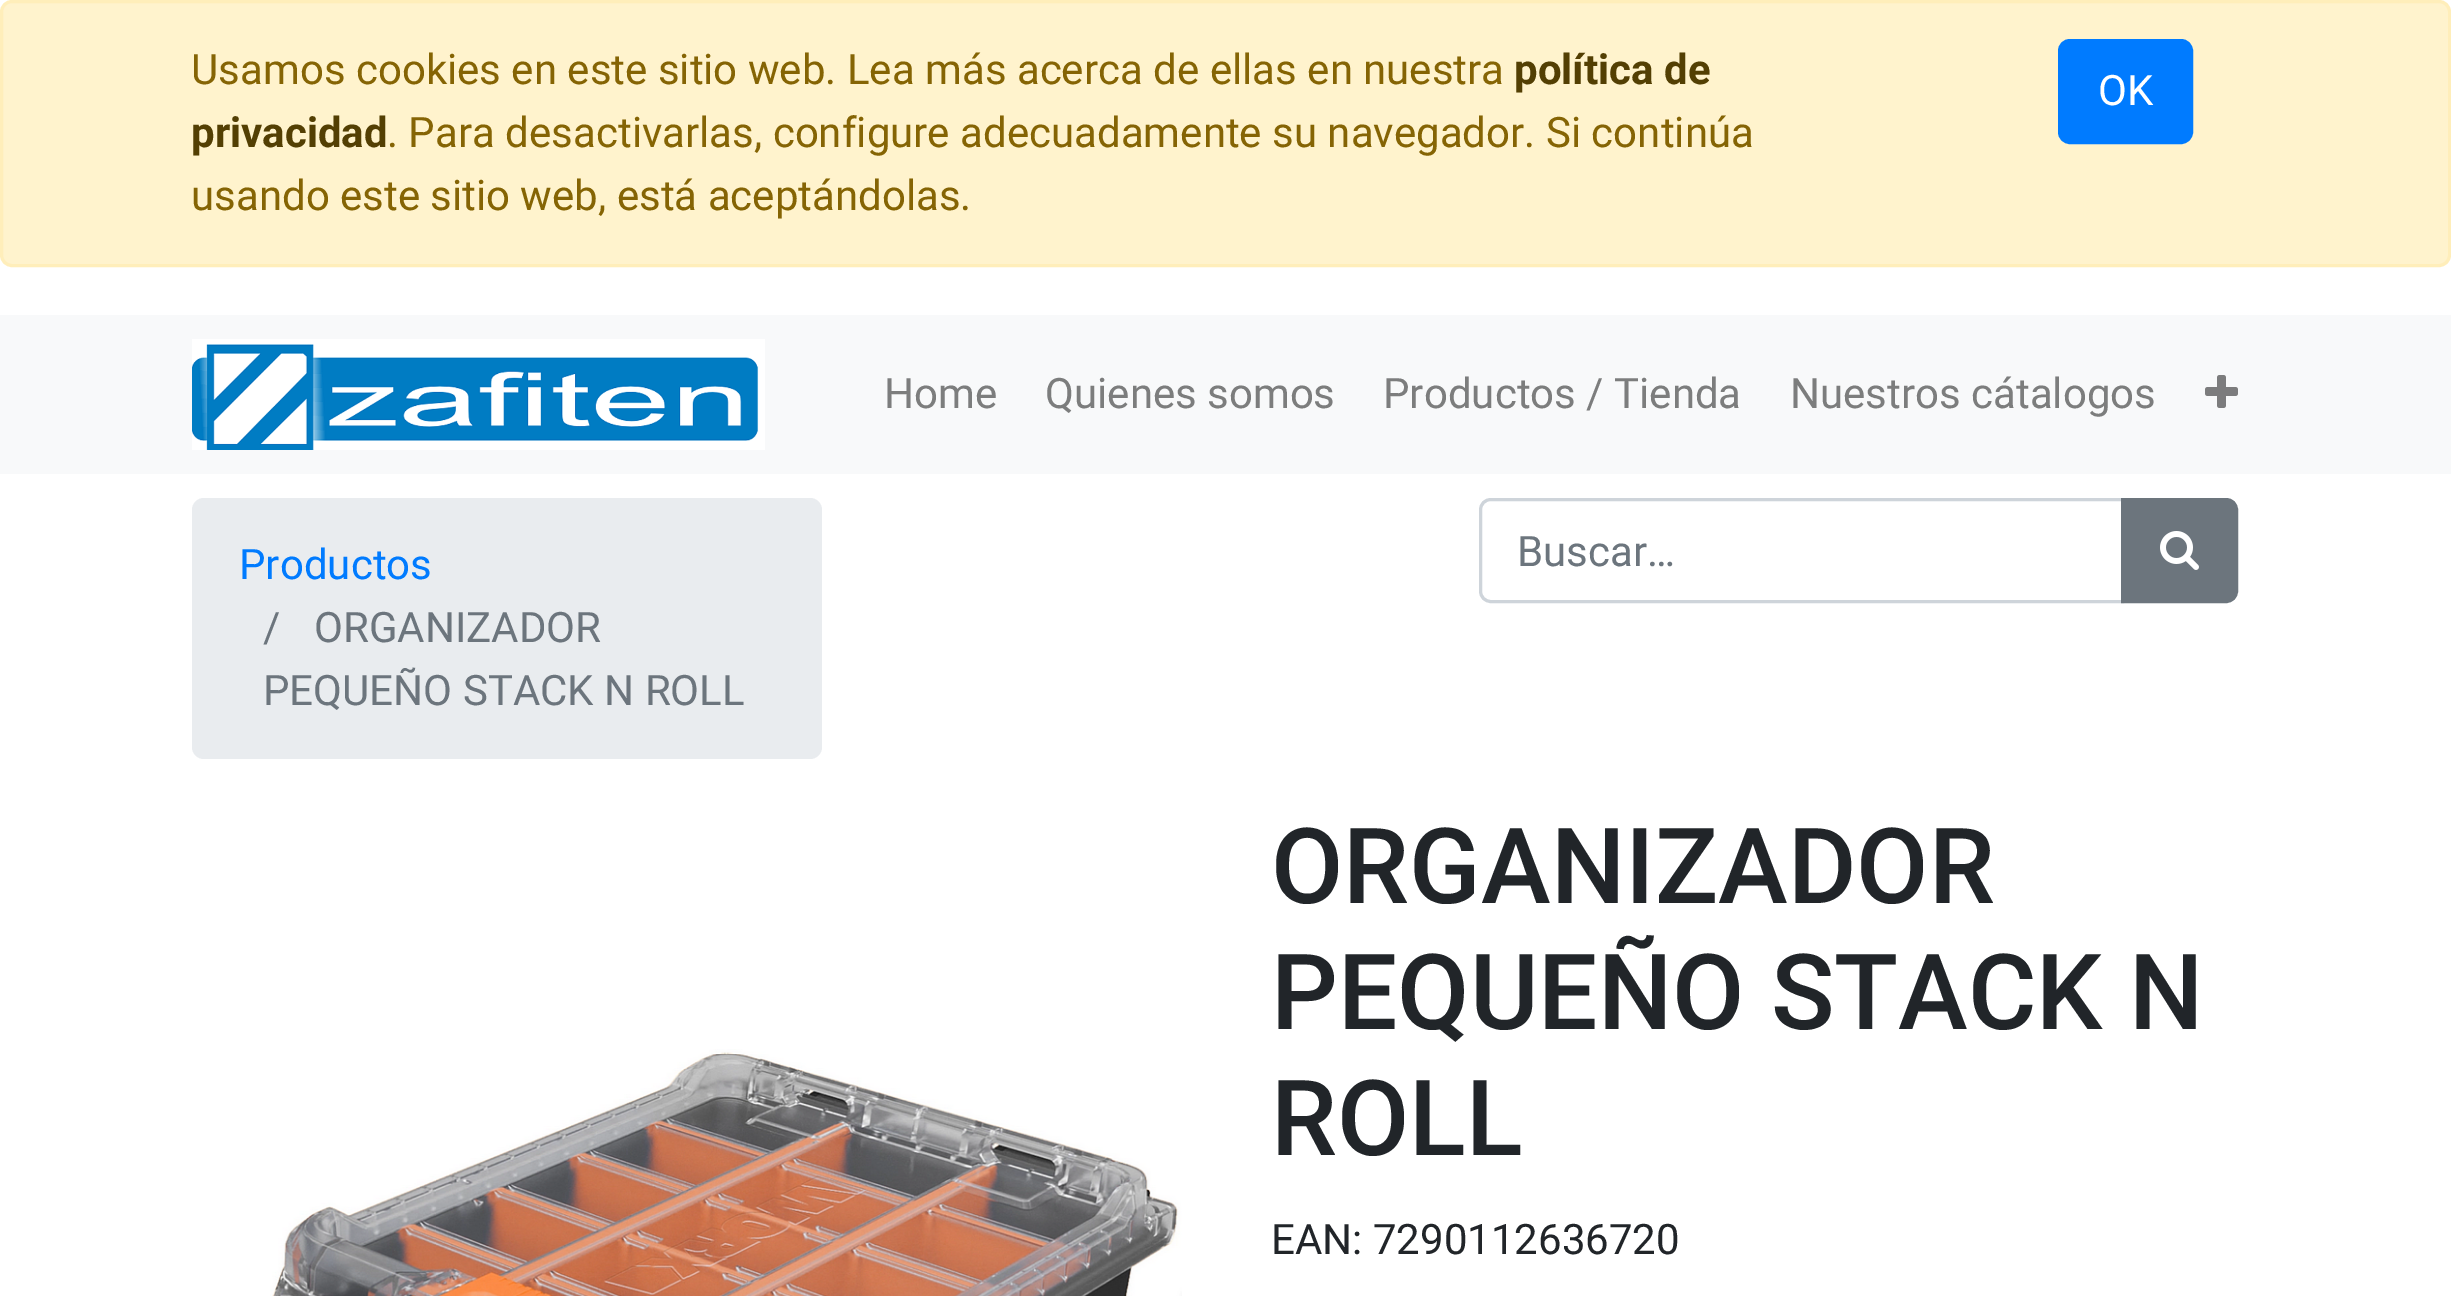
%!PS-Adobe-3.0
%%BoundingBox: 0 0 2451 1296
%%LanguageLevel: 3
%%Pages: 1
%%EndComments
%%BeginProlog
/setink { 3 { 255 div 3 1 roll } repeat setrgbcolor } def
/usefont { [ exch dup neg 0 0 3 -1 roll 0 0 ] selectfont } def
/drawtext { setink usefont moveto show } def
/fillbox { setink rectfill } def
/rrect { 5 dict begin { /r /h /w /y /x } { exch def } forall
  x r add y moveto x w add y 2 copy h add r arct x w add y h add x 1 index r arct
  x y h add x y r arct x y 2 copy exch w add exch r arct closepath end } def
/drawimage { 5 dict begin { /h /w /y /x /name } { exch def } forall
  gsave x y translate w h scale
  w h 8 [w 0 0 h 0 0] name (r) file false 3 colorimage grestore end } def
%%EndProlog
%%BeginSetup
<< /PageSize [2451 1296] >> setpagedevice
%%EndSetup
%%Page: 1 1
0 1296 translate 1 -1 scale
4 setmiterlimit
0 0 2451 1296 255 255 255 fillbox
255 243 205 setink
1.5 1.5 2448 264 10.5 rrect gsave fill grestore
255 238 186 setink
3 setlinewidth
stroke
(Usamos cookies en este sitio web. Lea más acerca de ellas en nuestra) 191 84 /Roboto-Regular 42 133 100 4 drawtext
(política de) 1514 84 /Roboto-Bold 42 83 63 3 drawtext
(privacidad) 191 147 /Roboto-Bold 42 83 63 3 drawtext
(. Para desactivarlas, configure adecuadamente su navegador. Si continúa) 387 147 /Roboto-Regular 42 133 100 4 drawtext
(usando este sitio web, está aceptándolas.) 191 210 /Roboto-Regular 42 133 100 4 drawtext
0 123 255 setink
2059.5 40.5 132 102 10.5 rrect gsave fill grestore
stroke
(OK) 2098 105 /Roboto-Regular 42 255 255 255 drawtext
0 315 2451 159 248 249 250 fillbox
(assets/img1.rgb) 192 339 573 111 drawimage
(Home) 884 408 /Roboto-Regular 42 124 125 125 drawtext
(Quienes somos) 1045 408 /Roboto-Regular 42 124 125 125 drawtext
(Productos / Tienda) 1383 408 /Roboto-Regular 42 124 125 125 drawtext
(Nuestros cátalogos) 1790 408 /Roboto-Regular 42 124 125 125 drawtext
(assets/img2.rgb) 2205 375 33 33 drawimage
233 236 239 setink
192 498 630 261 12 rrect fill
(Productos) 239 579 /Roboto-Regular 42 0 123 255 drawtext
(/) 263 642 /Roboto-Regular 42 108 117 125 drawtext
(ORGANIZADOR) 314 642 /Roboto-Regular 42 108 117 125 drawtext
(PEQUEÑO STACK N ROLL) 263 705 /Roboto-Regular 42 108 117 125 drawtext
206 212 218 setink
1491 499.5 moveto 2122.5 499.5 lineto 2122.5 601.5 lineto 1491 601.5 lineto 1485 601.5 1480.5 597 1480.5 591 curveto 1480.5 510 lineto 1480.5 504 1485 499.5 1491 499.5 curveto closepath stroke
(Buscar…) 1517 566 /Roboto-Regular 42 108 117 125 drawtext
2122.5 499.5 moveto 2226 499.5 lineto 2232 499.5 2236.5 504 2236.5 510 curveto 2236.5 591 lineto 2236.5 597 2232 601.5 2226 601.5 curveto 2122.5 601.5 lineto closepath gsave fill grestore
stroke
(assets/img3.rgb) 2160 531 39 39 drawimage
(assets/img4.rgb) 270 1049 912 247 drawimage
(ORGANIZADOR) 1271 903 /Roboto-Medium 105 33 37 41 drawtext
(PEQUEÑO STACK N) 1271 1029 /Roboto-Medium 105 33 37 41 drawtext
(ROLL) 1271 1155 /Roboto-Medium 105 33 37 41 drawtext
(EAN: 7290112636720) 1271 1254 /Roboto-Regular 42 33 37 41 drawtext
showpage
%%EOF
